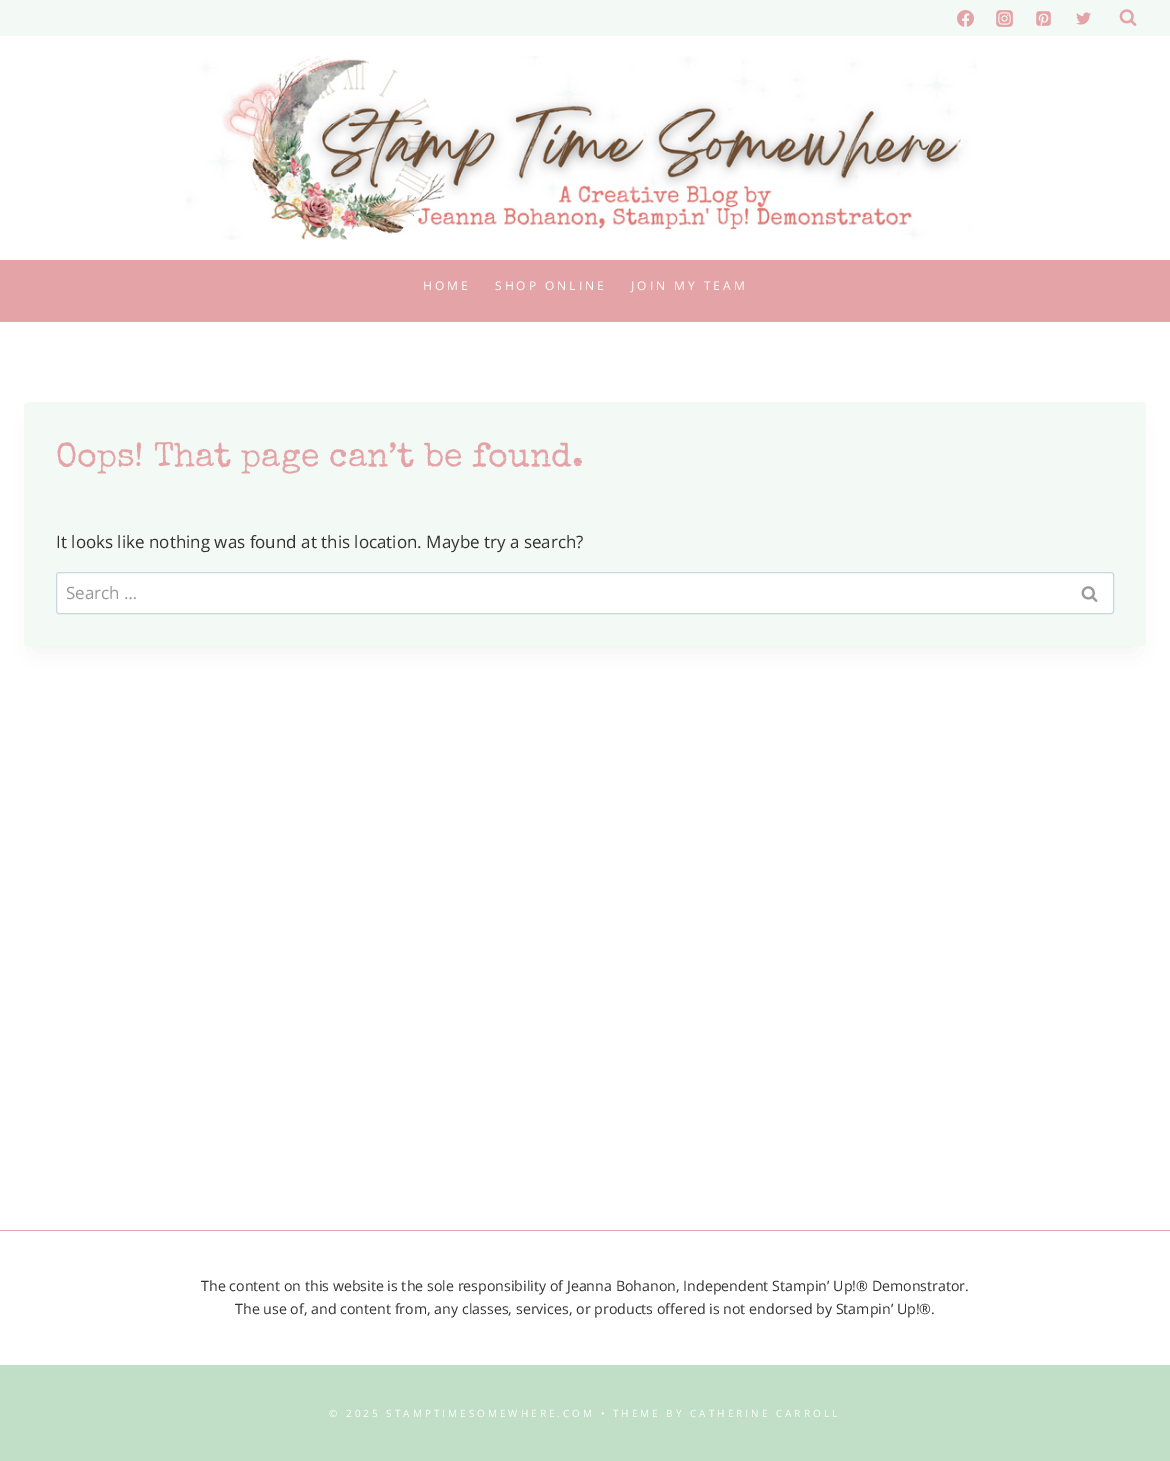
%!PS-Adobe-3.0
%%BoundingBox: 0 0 1170 1461
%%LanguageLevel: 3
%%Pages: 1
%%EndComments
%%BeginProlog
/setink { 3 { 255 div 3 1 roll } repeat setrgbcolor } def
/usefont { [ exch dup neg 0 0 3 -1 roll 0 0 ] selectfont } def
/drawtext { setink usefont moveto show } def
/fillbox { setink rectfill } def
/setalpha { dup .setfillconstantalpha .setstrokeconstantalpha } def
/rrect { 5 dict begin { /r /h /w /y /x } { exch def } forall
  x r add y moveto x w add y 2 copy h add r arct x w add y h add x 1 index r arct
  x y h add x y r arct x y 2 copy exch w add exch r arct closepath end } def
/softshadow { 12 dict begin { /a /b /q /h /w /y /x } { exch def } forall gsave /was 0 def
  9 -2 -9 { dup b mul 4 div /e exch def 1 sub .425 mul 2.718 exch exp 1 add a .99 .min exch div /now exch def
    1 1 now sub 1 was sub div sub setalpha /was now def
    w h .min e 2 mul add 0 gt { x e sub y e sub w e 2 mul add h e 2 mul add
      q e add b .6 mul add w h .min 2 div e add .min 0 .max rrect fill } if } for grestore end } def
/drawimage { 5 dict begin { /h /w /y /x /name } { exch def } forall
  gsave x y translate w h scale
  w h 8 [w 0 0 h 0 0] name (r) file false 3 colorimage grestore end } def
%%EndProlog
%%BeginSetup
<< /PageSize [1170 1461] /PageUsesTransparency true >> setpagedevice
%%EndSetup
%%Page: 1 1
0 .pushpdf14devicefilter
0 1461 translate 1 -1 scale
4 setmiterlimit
0 0 1170 1461 255 255 255 fillbox
0 0 1170 36 243 249 244 fillbox
(assets/img1.rgb) 957 10 17 17 drawimage
(assets/img2.rgb) 996 10 17 17 drawimage
(assets/img3.rgb) 1036 11 15 15 drawimage
(assets/img4.rgb) 1076 12 15 13 drawimage
(assets/img5.rgb) 1119 9 18 17 drawimage
(assets/img6.rgb) 185 56 792 184 drawimage
0 260 1170 62 228 163 166 fillbox
/OpenSans-Regular 12 usefont
255 255 255 setink
423 290 moveto 3 0 (HOME) ashow
495 290 moveto 3 0 (SHOP ONLINE) ashow
631 290 moveto 3 0 (JOIN MY TEAM) ashow
0 0 0 setink
34 427 1102 224 0 12.5 0.05 softshadow
243 249 244 setink
24 402 1122 244 4 rrect fill
(Oops! That page can’t be found.) 56 466 /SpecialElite-Regular 34 228 163 166 drawtext
(It looks like nothing was found at this location. Maybe try a search?) 56 548 /OpenSans-Regular 17 51 51 51 drawtext
255 255 255 setink
56.5 572.5 1057 41 2.5 rrect gsave fill grestore
203 213 224 setink
stroke
(Search …) 66 599 /OpenSans-Regular 17 153 153 153 drawtext
(assets/img7.rgb) 1081 586 17 16 drawimage
0 1230 1170 1 228 163 166 fillbox
(The content on this website is the sole responsibility of Jeanna Bohanon, Independent Stampin’ Up!® Demonstrator.) 201 1291 /OpenSans-Regular 14.22 51 51 51 drawtext
(The use of, and content from, any classes, services, or products offered is not endorsed by Stampin’ Up!®.) 235 1314 /OpenSans-Regular 14.22 51 51 51 drawtext
0 1365 1170 96 193 222 198 fillbox
/OpenSans-Regular 10 usefont
255 255 255 setink
329 1417 moveto 3 0 (© 2025 STAMPTIMESOMEWHERE.COM • THEME BY CATHERINE CARROLL) ashow
.poppdf14devicefilter showpage
%%EOF
